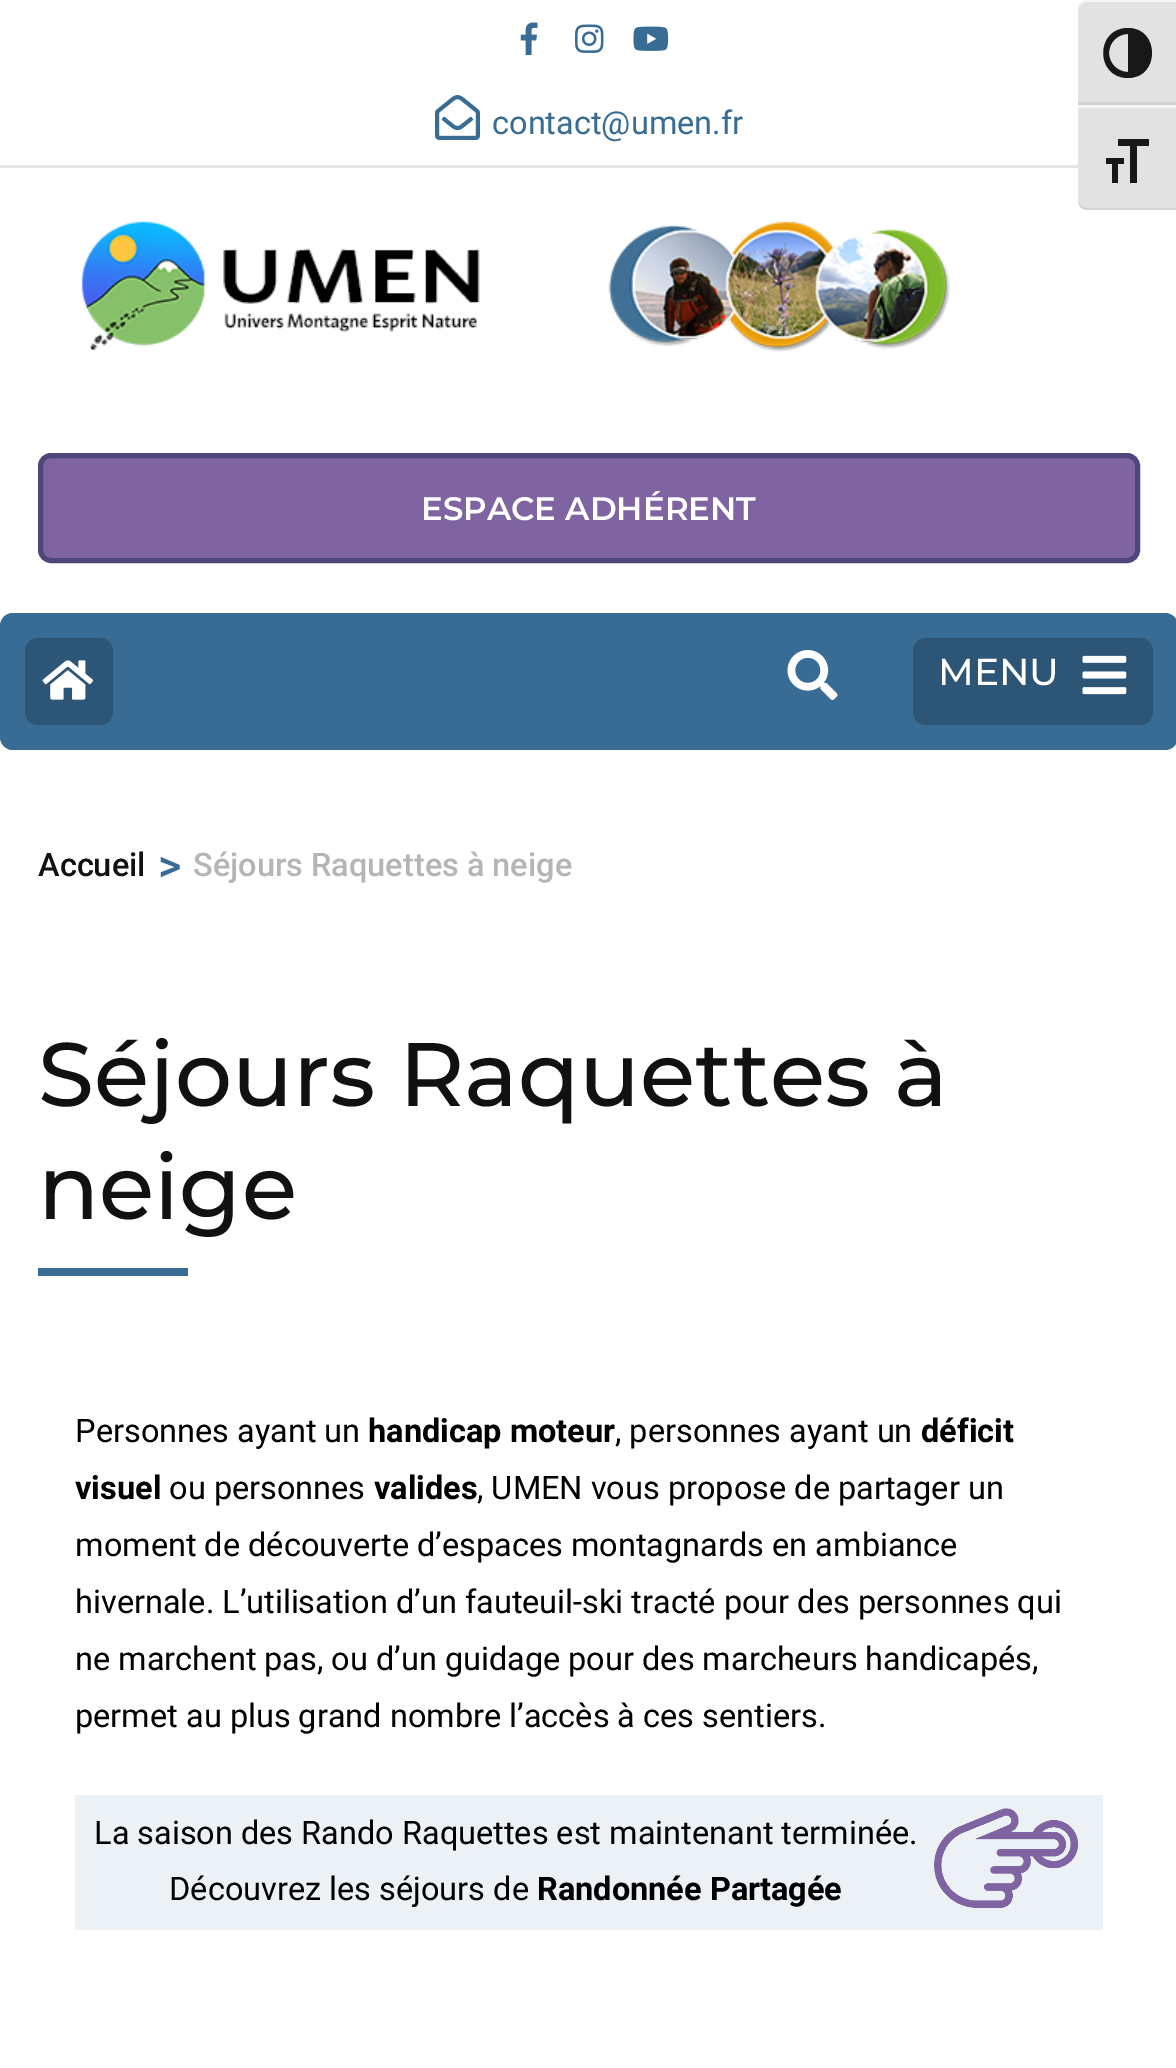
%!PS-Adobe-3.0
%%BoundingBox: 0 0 1176 2068
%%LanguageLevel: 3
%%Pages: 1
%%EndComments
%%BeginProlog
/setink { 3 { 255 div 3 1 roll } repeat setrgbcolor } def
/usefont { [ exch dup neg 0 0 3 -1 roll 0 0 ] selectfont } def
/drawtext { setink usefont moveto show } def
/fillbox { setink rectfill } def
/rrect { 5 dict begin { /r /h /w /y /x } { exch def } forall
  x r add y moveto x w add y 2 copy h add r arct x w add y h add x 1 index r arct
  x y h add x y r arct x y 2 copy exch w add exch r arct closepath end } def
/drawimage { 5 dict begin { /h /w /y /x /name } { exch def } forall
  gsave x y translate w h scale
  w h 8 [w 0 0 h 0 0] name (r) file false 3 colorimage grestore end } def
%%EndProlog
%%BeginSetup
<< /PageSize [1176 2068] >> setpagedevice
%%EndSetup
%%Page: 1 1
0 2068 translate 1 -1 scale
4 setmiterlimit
0 0 1176 2068 255 255 255 fillbox
0 165 1078 3 229 229 229 fillbox
(assets/img1.rgb) 520 22 18 33 drawimage
(assets/img2.rgb) 575 24 29 29 drawimage
(assets/img3.rgb) 633 26 36 25 drawimage
(assets/img4.rgb) 435 95 45 45 drawimage
(contact@umen.fr) 492 134 /Roboto-Regular 32.5 56 108 148 drawtext
(assets/img5.rgb) 81 221 869 131 drawimage
128 100 162 setink
40.5 455.5 1097 105 10.5 rrect gsave fill grestore
79 70 124 setink
5 setlinewidth
stroke
(ESPACE ADHÉRENT) 421 520 /Montserrat-SemiBold 32.5 255 255 255 drawtext
56 108 148 setink
0 613 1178 137 13 rrect fill
45 86 118 setink
25 638 88 87 13 rrect fill
(assets/img6.rgb) 42 660 52 40 drawimage
(assets/img7.rgb) 787 650 51 50 drawimage
913 638 240 87 13 rrect fill
(MENU) 938 685 /Montserrat-Medium 37.5 255 255 255 drawtext
(assets/img8.rgb) 1082 655 45 40 drawimage
226 226 226 setink
1088 0 moveto 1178 0 lineto 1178 105 lineto 1078 105 lineto 1078 10 lineto 1078 4.5 1082.5 0 1088 0 curveto closepath fill
245 245 245 setink
1088 0 moveto 1082 0 1078 4 1078 10 curveto 1078 6 1082 2 1088 2 curveto 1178 2 lineto 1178 0 lineto closepath fill
1078 102 98 3 210 210 210 fillbox
24 24 24 setink
1128 28 moveto 1095 28 1095 78 1128 78 curveto 1160 78 1160 28 1128 28 curveto closepath 1109 53 moveto 1109 43 1117 34 1128 34 curveto 1128 72 lineto 1117 72 1109 63 1109 53 curveto closepath fill
226 226 226 setink
1078 105 moveto 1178 105 lineto 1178 210 lineto 1088 210 lineto 1082.5 210 1078 205.5 1078 200 curveto closepath fill
1078 105 98 3 245 245 245 fillbox
210 210 210 setink
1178 210 moveto 1088 210 lineto 1082 210 1078 206 1078 200 curveto 1078 204 1082 208 1088 208 curveto 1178 208 lineto closepath fill
24 24 24 setink
1106 158 moveto 1124 158 lineto 1124 164 lineto 1118 164 lineto 1118 183 lineto 1112 183 lineto 1112 164 lineto 1106 164 lineto closepath 1149 146 moveto 1137 146 lineto 1137 183 lineto 1130 183 lineto 1130 146 lineto 1118 146 lineto 1118 139 lineto 1149 139 lineto closepath fill
(Accueil) 38 876 /Roboto-Medium 32.5 17 17 17 drawtext
(>) 158 881 /Roboto-Medium 45 56 108 148 drawtext
(Séjours Raquettes à neige) 193 876 /Roboto-Medium 32.5 181 181 181 drawtext
(Séjours Raquettes à) 38 1106 /Montserrat-Medium 90 17 17 17 drawtext
(neige) 38 1219 /Montserrat-Medium 90 17 17 17 drawtext
38 1268 150 8 56 108 148 fillbox
(Personnes ayant un) 75 1442 /Roboto-Regular 32.5 0 0 0 drawtext
(handicap moteur) 368 1442 /Roboto-Bold 32.5 0 0 0 drawtext
(, personnes ayant un) 615 1442 /Roboto-Regular 32.5 0 0 0 drawtext
(déficit) 921 1442 /Roboto-Bold 32.5 0 0 0 drawtext
(visuel) 75 1499 /Roboto-Bold 32.5 0 0 0 drawtext
(ou personnes) 169 1499 /Roboto-Regular 32.5 0 0 0 drawtext
(valides) 374 1499 /Roboto-Bold 32.5 0 0 0 drawtext
(, UMEN vous propose de partager un) 477 1499 /Roboto-Regular 32.5 0 0 0 drawtext
(moment de découverte d’espaces montagnards en ambiance) 75 1556 /Roboto-Regular 32.5 0 0 0 drawtext
(hivernale. L’utilisation d’un fauteuil-ski tracté pour des personnes qui) 75 1613 /Roboto-Regular 32.5 0 0 0 drawtext
(ne marchent pas, ou d’un guidage pour des marcheurs handicapés,) 75 1670 /Roboto-Regular 32.5 0 0 0 drawtext
(permet au plus grand nombre l’accès à ces sentiers.) 75 1727 /Roboto-Regular 32.5 0 0 0 drawtext
75 1795 1028 135 235 241 245 fillbox
(La saison des Rando Raquettes est maintenant terminée.) 94 1844 /Roboto-Regular 32.5 0 0 0 drawtext
(Découvrez les séjours de) 169 1900 /Roboto-Regular 32.5 0 0 0 drawtext
(Randonnée Partagée) 537 1900 /Roboto-Bold 32.5 0 0 0 drawtext
(assets/img9.rgb) 934 1808 144 100 drawimage
showpage
%%EOF
